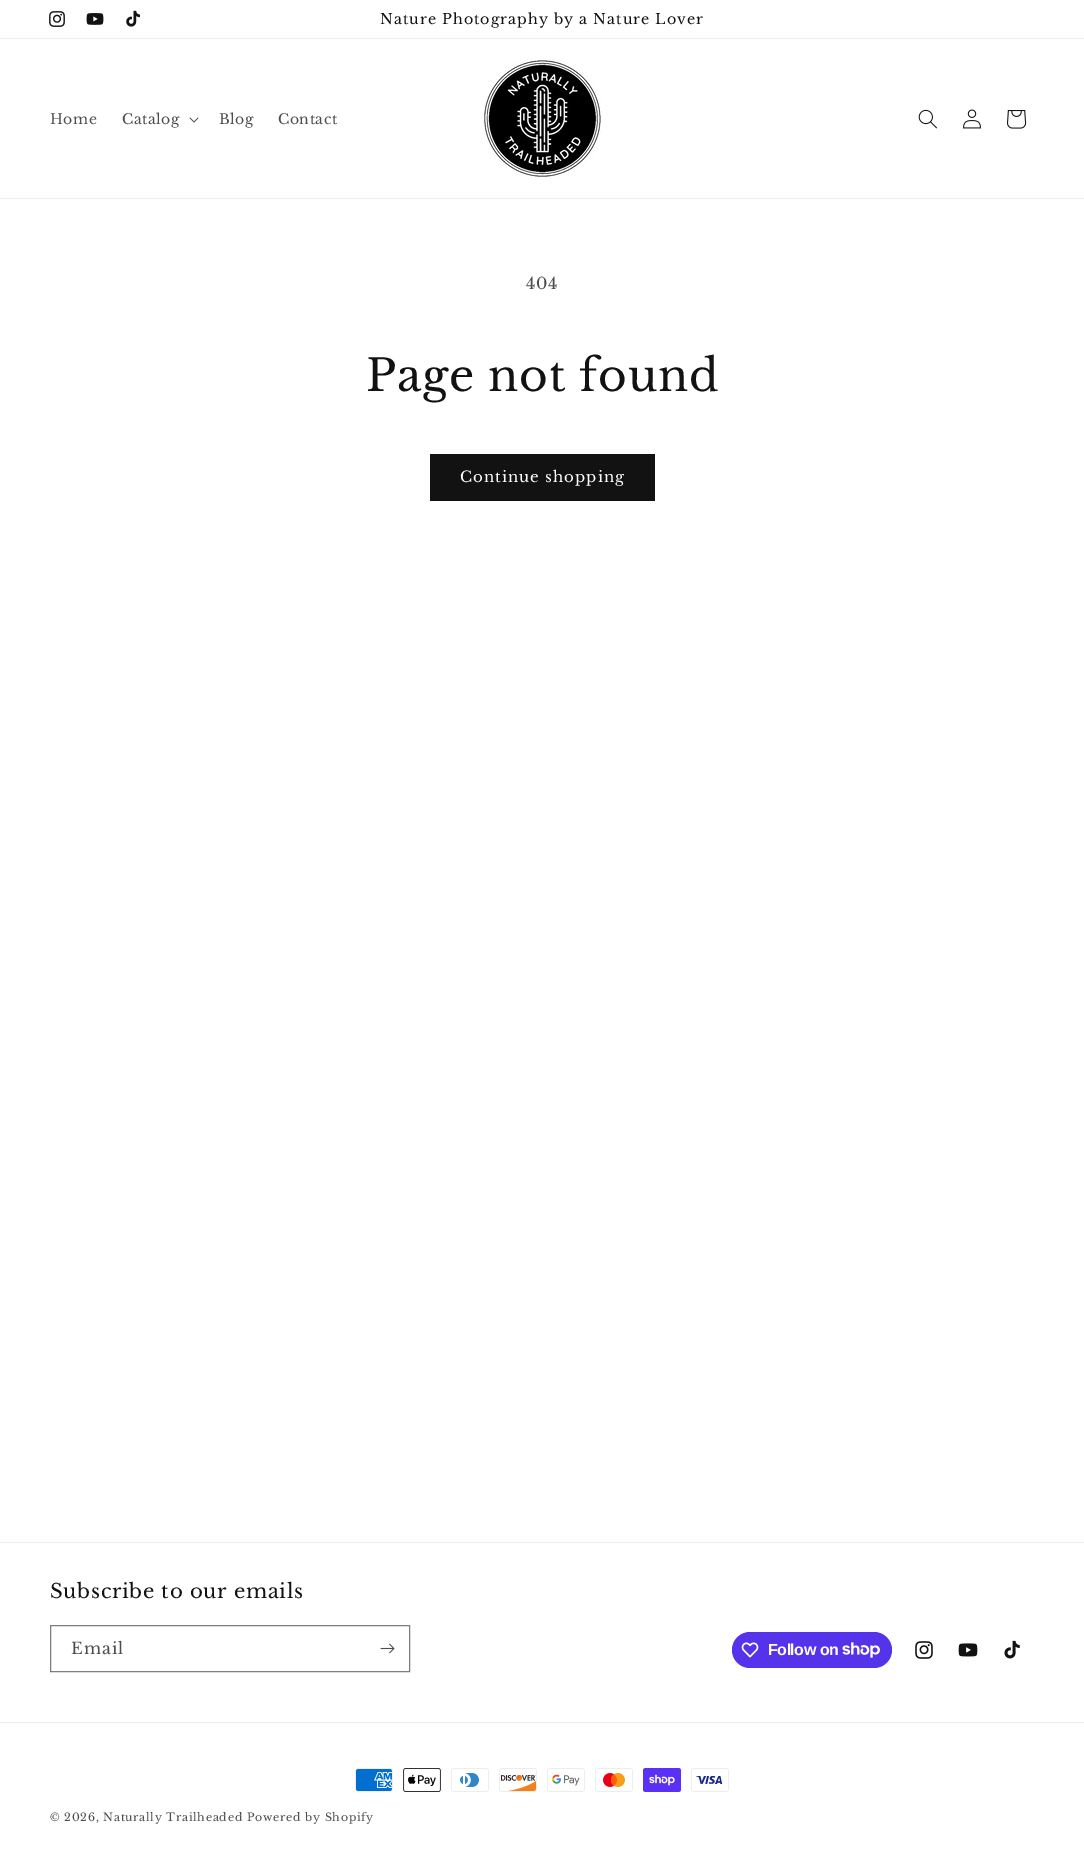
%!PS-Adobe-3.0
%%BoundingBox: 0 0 1084 1863
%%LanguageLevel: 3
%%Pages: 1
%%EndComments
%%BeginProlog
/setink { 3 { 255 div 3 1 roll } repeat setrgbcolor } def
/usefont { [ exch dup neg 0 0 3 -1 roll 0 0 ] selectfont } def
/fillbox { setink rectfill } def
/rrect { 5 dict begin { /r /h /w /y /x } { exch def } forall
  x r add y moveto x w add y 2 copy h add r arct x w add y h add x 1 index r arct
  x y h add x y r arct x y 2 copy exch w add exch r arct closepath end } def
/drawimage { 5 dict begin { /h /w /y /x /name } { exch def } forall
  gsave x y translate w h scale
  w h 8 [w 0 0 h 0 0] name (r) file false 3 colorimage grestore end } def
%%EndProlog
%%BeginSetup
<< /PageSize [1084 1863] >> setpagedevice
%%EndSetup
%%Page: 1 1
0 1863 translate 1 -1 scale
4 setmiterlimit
0 0 1084 1863 255 255 255 fillbox
0 38 1084 1 236 236 236 fillbox
(assets/img1.rgb) 49 11 16 16 drawimage
(assets/img2.rgb) 86 13 18 12 drawimage
(assets/img3.rgb) 126 10 14 17 drawimage
/LibreBaskerville-Regular 14.3 usefont
18 18 18 setink
380 24 moveto 1 0 (Nature Photography by a Nature Lover) ashow
0 198 1084 1 236 236 236 fillbox
/LibreBaskerville-Regular 14 usefont
77 77 77 setink
50 124 moveto 0.5 0 (Home) ashow
122 124 moveto 0.5 0 (Catalog) ashow
(assets/img4.rgb) 189 117 10 6 drawimage
219 124 moveto 0.5 0 (Blog) ashow
278 124 moveto 0.5 0 (Contact) ashow
(assets/img5.rgb) 482 59 120 120 drawimage
(assets/img6.rgb) 918 109 19 20 drawimage
(assets/img7.rgb) 963 109 18 20 drawimage
(assets/img8.rgb) 1007 110 20 19 drawimage
/LibreBaskerville-Regular 16 usefont
526 289 moveto 0.5 0 (404) ashow
/LibreBaskerville-Regular 44 usefont
18 18 18 setink
366 391 moveto 0.7 0 (Page not found) ashow
430 454 225 47 18 18 18 fillbox
/LibreBaskerville-Regular 15 usefont
255 255 255 setink
460 482 moveto 1 0 (Continue shopping) ashow
0 1542 1084 1 236 236 236 fillbox
/LibreBaskerville-Regular 19.75 usefont
18 18 18 setink
50 1598 moveto 0.7 0 (Subscribe to our emails) ashow
125 125 125 setink
50.5 1625.5 359 46 rectstroke
/LibreBaskerville-Regular 16 usefont
77 77 77 setink
71 1654 moveto 1 0 (Email) ashow
(assets/img9.rgb) 380 1643 15 11 drawimage
84 51 235 setink
732 1632 160 36 18 rrect fill
(assets/img10.rgb) 741 1642 18 16 drawimage
/LiberationSans-Bold 16 usefont
255 255 255 setink
768 1655 moveto -0.5 0 (Follow on) ashow
(assets/img11.rgb) 842 1642 38 16 drawimage
(assets/img12.rgb) 915 1641 18 18 drawimage
(assets/img13.rgb) 958 1643 20 14 drawimage
(assets/img14.rgb) 1004 1640 16 19 drawimage
0 1722 1084 1 236 236 236 fillbox
(assets/img15.rgb) 355 1768 38 24 drawimage
(assets/img16.rgb) 403 1768 38 24 drawimage
(assets/img17.rgb) 451 1768 38 24 drawimage
(assets/img18.rgb) 499 1768 38 24 drawimage
(assets/img19.rgb) 547 1768 38 24 drawimage
(assets/img20.rgb) 595 1768 38 24 drawimage
(assets/img21.rgb) 643 1768 38 24 drawimage
(assets/img22.rgb) 691 1768 38 24 drawimage
/LibreBaskerville-Regular 11 usefont
77 77 77 setink
50 1821 moveto 0.7 0 (© 2026, Naturally Trailheaded) ashow
247 1821 moveto 0.7 0 (Powered by Shopify) ashow
showpage
%%EOF
